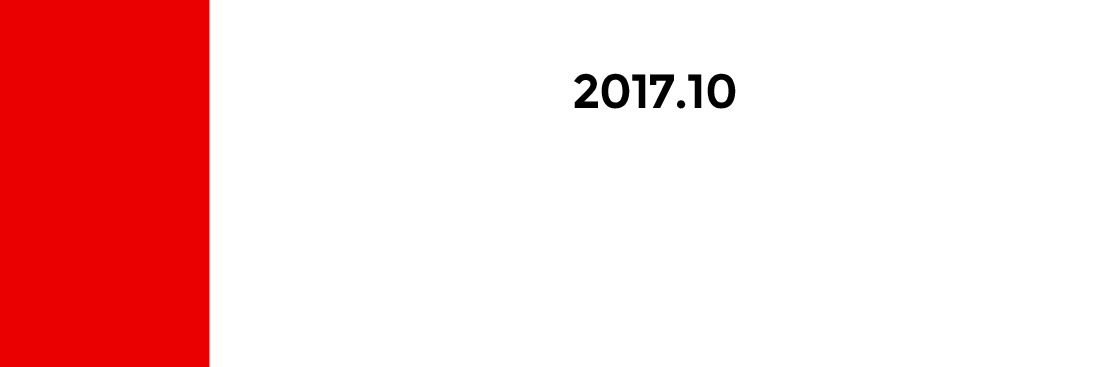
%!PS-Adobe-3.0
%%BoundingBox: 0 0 1099 367
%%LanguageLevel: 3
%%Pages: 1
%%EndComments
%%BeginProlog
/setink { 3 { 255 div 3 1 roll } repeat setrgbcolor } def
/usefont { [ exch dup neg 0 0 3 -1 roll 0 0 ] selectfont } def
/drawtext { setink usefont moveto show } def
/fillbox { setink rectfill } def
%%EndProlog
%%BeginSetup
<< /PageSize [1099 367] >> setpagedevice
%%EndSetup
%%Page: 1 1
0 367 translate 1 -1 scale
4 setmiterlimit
0 0 1099 367 255 255 255 fillbox
0 0 209 367 235 0 0 fillbox
209 0 1 367 200 199 201 fillbox
(2017.10) 572 108 /Montserrat-Bold 46 0 0 0 drawtext
showpage
%%EOF
